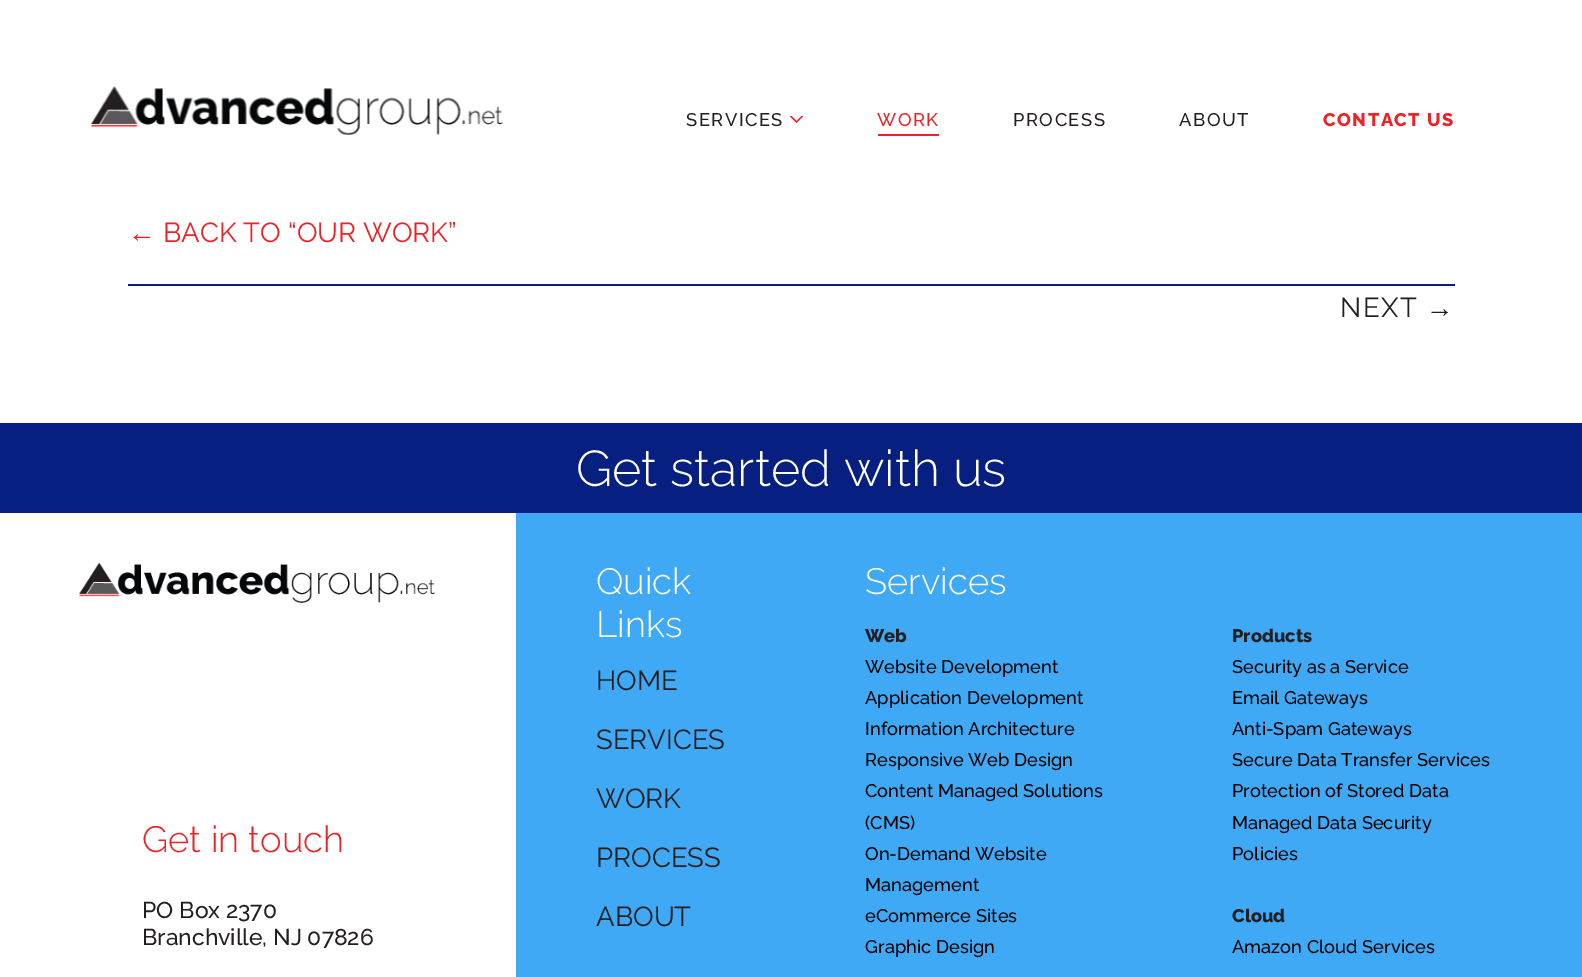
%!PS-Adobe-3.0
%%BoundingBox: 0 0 1582 977
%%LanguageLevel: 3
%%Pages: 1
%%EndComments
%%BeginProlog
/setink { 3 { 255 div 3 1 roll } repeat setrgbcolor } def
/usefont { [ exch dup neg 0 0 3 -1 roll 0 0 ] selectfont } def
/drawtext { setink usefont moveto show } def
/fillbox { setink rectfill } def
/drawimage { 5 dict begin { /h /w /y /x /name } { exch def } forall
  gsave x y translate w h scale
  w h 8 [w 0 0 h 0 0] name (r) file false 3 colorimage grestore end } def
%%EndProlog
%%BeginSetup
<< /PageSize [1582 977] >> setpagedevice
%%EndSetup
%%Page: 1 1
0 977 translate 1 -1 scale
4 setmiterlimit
0 0 1582 977 255 255 255 fillbox
(assets/img1.rgb) 91 86 412 49 drawimage
/Raleway-Medium 18.25 usefont
35 31 32 setink
686 126 moveto 1.5 0 (SERVICES) ashow
gsave
789 116 15 7 rectclip
237 33 38 setink
1.2 setlinewidth
790.5 116 moveto 796.5 122 lineto 802.5 116 lineto stroke
grestore
237 33 38 setink
877 126 moveto 1.5 0 (WORK) ashow
878 134 61 2 237 33 38 fillbox
35 31 32 setink
1013 126 moveto 1.5 0 (PROCESS) ashow
1179 126 moveto 1.5 0 (ABOUT) ashow
/Raleway-ExtraBold 18.25 usefont
237 33 38 setink
1323 126 moveto 1.5 0 (CONTACT US) ashow
(←) 128 242 /LiberationSans-Regular 27.5 237 33 38 drawtext
(BACK TO “OUR WORK”) 163 242 /Raleway-Regular 27.5 237 33 38 drawtext
128 284 1327 2 8 31 130 fillbox
35 31 32 setink
1340 317 moveto 1.5 0 (NEXT) ashow
/LiberationSans-Regular 27.5 usefont
1426 317 moveto 1.5 0 (→) ashow
0 423 1582 90 8 31 130 fillbox
(Get started with us) 576 486 /Raleway-Light 50.25 255 255 255 drawtext
(assets/img2.rgb) 79 562 356 41 drawimage
(Get in touch) 142 852 /Raleway-Light 36.5 237 33 38 drawtext
(PO Box 2370) 142 918 /Raleway-Medium 22.9 35 31 32 drawtext
(Branchville, NJ 07826) 142 945 /Raleway-Medium 22.9 35 31 32 drawtext
516 513 1066 464 63 169 245 fillbox
(Quick) 596 594 /Raleway-Light 36.5 255 255 255 drawtext
(Links) 596 637 /Raleway-Light 36.5 255 255 255 drawtext
(HOME) 596 690 /Raleway-Regular 27.5 35 31 32 drawtext
(SERVICES) 596 749 /Raleway-Regular 27.5 35 31 32 drawtext
(WORK) 596 808 /Raleway-Regular 27.5 35 31 32 drawtext
(PROCESS) 596 867 /Raleway-Regular 27.5 35 31 32 drawtext
(ABOUT) 596 926 /Raleway-Regular 27.5 35 31 32 drawtext
(Services) 865 594 /Raleway-Light 36.5 255 255 255 drawtext
(Web) 865 642 /Raleway-ExtraBold 18.25 35 31 32 drawtext
(Website Development) 865 673 /Raleway-Medium 18.25 0 0 0 drawtext
(Application Development) 865 704 /Raleway-Medium 18.25 0 0 0 drawtext
(Information Architecture) 865 735 /Raleway-Medium 18.25 0 0 0 drawtext
(Responsive Web Design) 865 766 /Raleway-Medium 18.25 0 0 0 drawtext
(Content Managed Solutions) 865 797 /Raleway-Medium 18.25 0 0 0 drawtext
(\(CMS\)) 865 829 /Raleway-Medium 18.25 0 0 0 drawtext
(On-Demand Website) 865 860 /Raleway-Medium 18.25 0 0 0 drawtext
(Management) 865 891 /Raleway-Medium 18.25 0 0 0 drawtext
(eCommerce Sites) 865 922 /Raleway-Medium 18.25 0 0 0 drawtext
(Graphic Design) 865 953 /Raleway-Medium 18.25 0 0 0 drawtext
(Products) 1232 642 /Raleway-ExtraBold 18.25 35 31 32 drawtext
(Security as a Service) 1232 673 /Raleway-Medium 18.25 0 0 0 drawtext
(Email Gateways) 1232 704 /Raleway-Medium 18.25 0 0 0 drawtext
(Anti-Spam Gateways) 1232 735 /Raleway-Medium 18.25 0 0 0 drawtext
(Secure Data Transfer Services) 1232 766 /Raleway-Medium 18.25 0 0 0 drawtext
(Protection of Stored Data) 1232 797 /Raleway-Medium 18.25 0 0 0 drawtext
(Managed Data Security) 1232 829 /Raleway-Medium 18.25 0 0 0 drawtext
(Policies) 1232 860 /Raleway-Medium 18.25 0 0 0 drawtext
(Cloud) 1232 922 /Raleway-ExtraBold 18.25 35 31 32 drawtext
(Amazon Cloud Services) 1232 953 /Raleway-Medium 18.25 0 0 0 drawtext
showpage
%%EOF
